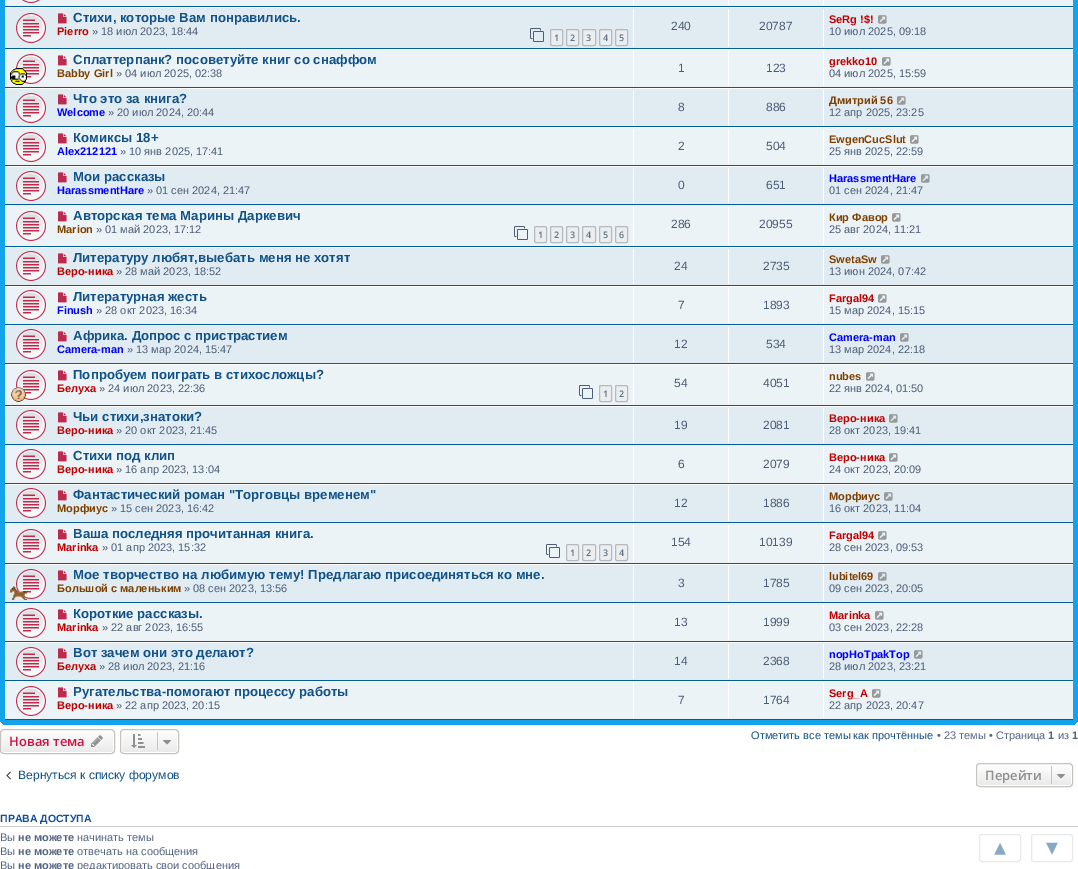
%!PS-Adobe-3.0
%%BoundingBox: 0 0 1078 869
%%LanguageLevel: 3
%%Pages: 1
%%EndComments
%%BeginProlog
/setink { 3 { 255 div 3 1 roll } repeat setrgbcolor } def
/usefont { [ exch dup neg 0 0 3 -1 roll 0 0 ] selectfont } def
/drawtext { setink usefont moveto show } def
/fillbox { setink rectfill } def
/rrect { 5 dict begin { /r /h /w /y /x } { exch def } forall
  x r add y moveto x w add y 2 copy h add r arct x w add y h add x 1 index r arct
  x y h add x y r arct x y 2 copy exch w add exch r arct closepath end } def
/drawimage { 5 dict begin { /h /w /y /x /name } { exch def } forall
  gsave x y translate w h scale
  w h 8 [w 0 0 h 0 0] name (r) file false 3 colorimage grestore end } def
%%EndProlog
%%BeginSetup
<< /PageSize [1078 869] >> setpagedevice
%%EndSetup
%%Page: 1 1
0 869 translate 1 -1 scale
4 setmiterlimit
0 0 1078 869 255 255 255 fillbox
gsave 0 -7 1078 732 7 rrect clip newpath
<< /ShadingType 2 /ColorSpace /DeviceRGB /Coords [539 -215 539 725] /Extend [true true] /Function << /FunctionType 3 /Domain [0 1] /Functions [<< /FunctionType 2 /Domain [0 1] /C0 [0 0.463 0.694] /C1 [0.071 0.639 0.922] /N 1 >> << /FunctionType 2 /Domain [0 1] /C0 [0.071 0.639 0.922] /C1 [0.071 0.639 0.922] /N 1 >>] /Bounds [0.1] /Encode [0 1 0 1] >> >> shfill grestore
5 0 1068 6 236 243 247 fillbox
5 6 1068 1 0 96 143 fillbox
(assets/img1.rgb) 22 0 18 3 drawimage
633 0 1 5 255 255 255 fillbox
728 0 1 5 255 255 255 fillbox
823 0 1 5 255 255 255 fillbox
5 8 1068 40 225 235 242 fillbox
5 7 1068 1 255 255 255 fillbox
5 48 1068 1 0 96 143 fillbox
(assets/img2.rgb) 16 13 30 30 drawimage
(assets/img3.rgb) 58 13 9 11 drawimage
(Стихи, которые Вам понравились.) 73 22 /LiberationSans-Bold 13.2 16 82 137 drawtext
(Pierro) 57 35 /LiberationSans-Bold 11 191 0 0 drawtext
(» 18 июл 2023, 18:44) 92 35 /LiberationSans-Regular 11 76 93 119 drawtext
(assets/img4.rgb) 530 28 14 14 drawimage
236 237 238 setink
550.5 29.5 12 16 1.5 rrect gsave fill grestore
180 186 192 setink
stroke
(1) 554 41 /OpenSans-SemiBold 9 92 117 140 drawtext
236 237 238 setink
566.5 29.5 12 16 1.5 rrect gsave fill grestore
180 186 192 setink
stroke
(2) 570 41 /OpenSans-SemiBold 9 92 117 140 drawtext
236 237 238 setink
582.5 29.5 13 16 1.5 rrect gsave fill grestore
180 186 192 setink
stroke
(3) 586 41 /OpenSans-SemiBold 9 92 117 140 drawtext
236 237 238 setink
599.5 29.5 12 16 1.5 rrect gsave fill grestore
180 186 192 setink
stroke
(4) 603 41 /OpenSans-SemiBold 9 92 117 140 drawtext
236 237 238 setink
615.5 29.5 12 16 1.5 rrect gsave fill grestore
180 186 192 setink
stroke
(5) 619 41 /OpenSans-SemiBold 9 92 117 140 drawtext
633 9 1 38 255 255 255 fillbox
(240) 671 30 /LiberationSans-Regular 12 76 93 119 drawtext
728 9 1 38 255 255 255 fillbox
(20787) 759 30 /LiberationSans-Regular 12 76 93 119 drawtext
823 9 1 38 255 255 255 fillbox
(SeRg !$!) 829 23 /LiberationSans-Bold 11 191 0 0 drawtext
(assets/img5.rgb) 878 15 9 9 drawimage
(10 июл 2025, 09:18) 829 35 /LiberationSans-Regular 11 76 93 119 drawtext
5 50 1068 37 236 243 247 fillbox
5 49 1068 1 255 255 255 fillbox
5 87 1068 1 0 96 143 fillbox
(assets/img6.rgb) 16 54 30 30 drawimage
(assets/img7.rgb) 10 68 17 17 drawimage
(assets/img8.rgb) 58 55 9 11 drawimage
(Сплаттерпанк? посоветуйте книг со снаффом) 73 64 /LiberationSans-Bold 13.2 16 82 137 drawtext
(Babby Girl) 57 77 /LiberationSans-Bold 11 128 64 0 drawtext
(» 04 июл 2025, 02:38) 116 77 /LiberationSans-Regular 11 76 93 119 drawtext
633 51 1 35 255 255 255 fillbox
(1) 678 72 /LiberationSans-Regular 12 76 93 119 drawtext
728 51 1 35 255 255 255 fillbox
(123) 766 72 /LiberationSans-Regular 12 76 93 119 drawtext
823 51 1 35 255 255 255 fillbox
(grekko10) 829 65 /LiberationSans-Bold 11 191 0 0 drawtext
(assets/img9.rgb) 882 57 9 9 drawimage
(04 июл 2025, 15:59) 829 77 /LiberationSans-Regular 11 76 93 119 drawtext
5 89 1068 37 225 235 242 fillbox
5 88 1068 1 255 255 255 fillbox
5 126 1068 1 0 96 143 fillbox
(assets/img2.rgb) 16 93 30 30 drawimage
(assets/img3.rgb) 58 94 9 11 drawimage
(Что это за книга?) 73 103 /LiberationSans-Bold 13.2 16 82 137 drawtext
(Welcome) 57 116 /LiberationSans-Bold 11 0 0 255 drawtext
(» 20 июл 2024, 20:44) 108 116 /LiberationSans-Regular 11 76 93 119 drawtext
633 90 1 35 255 255 255 fillbox
(8) 678 111 /LiberationSans-Regular 12 76 93 119 drawtext
728 90 1 35 255 255 255 fillbox
(886) 766 111 /LiberationSans-Regular 12 76 93 119 drawtext
823 90 1 35 255 255 255 fillbox
(Дмитрий 56) 829 104 /LiberationSans-Bold 11 128 64 0 drawtext
(assets/img5.rgb) 897 96 9 9 drawimage
(12 апр 2025, 23:25) 829 116 /LiberationSans-Regular 11 76 93 119 drawtext
5 128 1068 37 236 243 247 fillbox
5 127 1068 1 255 255 255 fillbox
5 165 1068 1 0 96 143 fillbox
(assets/img6.rgb) 16 132 30 30 drawimage
(assets/img8.rgb) 58 133 9 11 drawimage
(Комиксы 18+) 73 142 /LiberationSans-Bold 13.2 16 82 137 drawtext
(Alex212121) 57 155 /LiberationSans-Bold 11 0 0 255 drawtext
(» 10 янв 2025, 17:41) 120 155 /LiberationSans-Regular 11 76 93 119 drawtext
633 129 1 35 255 255 255 fillbox
(2) 678 150 /LiberationSans-Regular 12 76 93 119 drawtext
728 129 1 35 255 255 255 fillbox
(504) 766 150 /LiberationSans-Regular 12 76 93 119 drawtext
823 129 1 35 255 255 255 fillbox
(EwgenCucSlut) 829 143 /LiberationSans-Bold 11 128 64 0 drawtext
(assets/img9.rgb) 910 135 9 9 drawimage
(25 янв 2025, 22:59) 829 155 /LiberationSans-Regular 11 76 93 119 drawtext
5 167 1068 37 225 235 242 fillbox
5 166 1068 1 255 255 255 fillbox
5 204 1068 1 0 96 143 fillbox
(assets/img2.rgb) 16 171 30 30 drawimage
(assets/img3.rgb) 58 172 9 11 drawimage
(Мои рассказы) 73 181 /LiberationSans-Bold 13.2 16 82 137 drawtext
(HarassmentHare) 57 194 /LiberationSans-Bold 11 0 0 255 drawtext
(» 01 сен 2024, 21:47) 147 194 /LiberationSans-Regular 11 76 93 119 drawtext
633 168 1 35 255 255 255 fillbox
(0) 678 189 /LiberationSans-Regular 12 76 93 119 drawtext
728 168 1 35 255 255 255 fillbox
(651) 766 189 /LiberationSans-Regular 12 76 93 119 drawtext
823 168 1 35 255 255 255 fillbox
(HarassmentHare) 829 182 /LiberationSans-Bold 11 0 0 255 drawtext
(assets/img5.rgb) 921 174 9 9 drawimage
(01 сен 2024, 21:47) 829 194 /LiberationSans-Regular 11 76 93 119 drawtext
5 206 1068 40 236 243 247 fillbox
5 205 1068 1 255 255 255 fillbox
5 246 1068 1 0 96 143 fillbox
(assets/img6.rgb) 16 211 30 30 drawimage
(assets/img8.rgb) 58 211 9 11 drawimage
(Авторская тема Марины Даркевич) 73 220 /LiberationSans-Bold 13.2 16 82 137 drawtext
(Marion) 57 233 /LiberationSans-Bold 11 128 64 0 drawtext
(» 01 май 2023, 17:12) 96 233 /LiberationSans-Regular 11 76 93 119 drawtext
(assets/img10.rgb) 514 226 14 14 drawimage
236 237 238 setink
534.5 226.5 12 16 1.5 rrect gsave fill grestore
180 186 192 setink
stroke
(1) 538 238 /OpenSans-SemiBold 9 92 117 140 drawtext
236 237 238 setink
550.5 226.5 12 16 1.5 rrect gsave fill grestore
180 186 192 setink
stroke
(2) 554 238 /OpenSans-SemiBold 9 92 117 140 drawtext
236 237 238 setink
566.5 226.5 12 16 1.5 rrect gsave fill grestore
180 186 192 setink
stroke
(3) 570 238 /OpenSans-SemiBold 9 92 117 140 drawtext
236 237 238 setink
582.5 226.5 13 16 1.5 rrect gsave fill grestore
180 186 192 setink
stroke
(4) 586 238 /OpenSans-SemiBold 9 92 117 140 drawtext
236 237 238 setink
599.5 226.5 12 16 1.5 rrect gsave fill grestore
180 186 192 setink
stroke
(5) 603 238 /OpenSans-SemiBold 9 92 117 140 drawtext
236 237 238 setink
615.5 226.5 12 16 1.5 rrect gsave fill grestore
180 186 192 setink
stroke
(6) 619 238 /OpenSans-SemiBold 9 92 117 140 drawtext
633 207 1 38 255 255 255 fillbox
(286) 671 228 /LiberationSans-Regular 12 76 93 119 drawtext
728 207 1 38 255 255 255 fillbox
(20955) 759 228 /LiberationSans-Regular 12 76 93 119 drawtext
823 207 1 38 255 255 255 fillbox
(Кир Фавор) 829 221 /LiberationSans-Bold 11 128 64 0 drawtext
(assets/img9.rgb) 892 213 9 9 drawimage
(25 авг 2024, 11:21) 829 233 /LiberationSans-Regular 11 76 93 119 drawtext
5 248 1068 37 225 235 242 fillbox
5 247 1068 1 255 255 255 fillbox
5 285 1068 1 0 96 143 fillbox
(assets/img2.rgb) 16 251 30 30 drawimage
(assets/img3.rgb) 58 253 9 11 drawimage
(Литературу любят,выебать меня не хотят) 73 262 /LiberationSans-Bold 13.2 16 82 137 drawtext
(Веро-ника) 57 275 /LiberationSans-Bold 11 191 0 0 drawtext
(» 28 май 2023, 18:52) 116 275 /LiberationSans-Regular 11 76 93 119 drawtext
633 249 1 35 255 255 255 fillbox
(24) 674 270 /LiberationSans-Regular 12 76 93 119 drawtext
728 249 1 35 255 255 255 fillbox
(2735) 763 270 /LiberationSans-Regular 12 76 93 119 drawtext
823 249 1 35 255 255 255 fillbox
(SwetaSw) 829 263 /LiberationSans-Bold 11 128 64 0 drawtext
(assets/img5.rgb) 881 255 9 9 drawimage
(13 июн 2024, 07:42) 829 275 /LiberationSans-Regular 11 76 93 119 drawtext
5 287 1068 37 236 243 247 fillbox
5 286 1068 1 255 255 255 fillbox
5 324 1068 1 0 96 143 fillbox
(assets/img6.rgb) 16 290 30 30 drawimage
(assets/img8.rgb) 58 292 9 11 drawimage
(Литературная жесть) 73 301 /LiberationSans-Bold 13.2 16 82 137 drawtext
(Finush) 57 314 /LiberationSans-Bold 11 0 0 255 drawtext
(» 28 окт 2023, 16:34) 96 314 /LiberationSans-Regular 11 76 93 119 drawtext
633 288 1 35 255 255 255 fillbox
(7) 678 309 /LiberationSans-Regular 12 76 93 119 drawtext
728 288 1 35 255 255 255 fillbox
(1893) 763 309 /LiberationSans-Regular 12 76 93 119 drawtext
823 288 1 35 255 255 255 fillbox
(Fargal94) 829 302 /LiberationSans-Bold 11 191 0 0 drawtext
(assets/img9.rgb) 878 294 9 9 drawimage
(15 мар 2024, 15:15) 829 314 /LiberationSans-Regular 11 76 93 119 drawtext
5 326 1068 37 225 235 242 fillbox
5 325 1068 1 255 255 255 fillbox
5 363 1068 1 0 96 143 fillbox
(assets/img2.rgb) 16 329 30 30 drawimage
(assets/img3.rgb) 58 331 9 11 drawimage
(Африка. Допрос с пристрастием) 73 340 /LiberationSans-Bold 13.2 16 82 137 drawtext
(Camera-man) 57 353 /LiberationSans-Bold 11 0 0 255 drawtext
(» 13 мар 2024, 15:47) 127 353 /LiberationSans-Regular 11 76 93 119 drawtext
633 327 1 35 255 255 255 fillbox
(12) 674 348 /LiberationSans-Regular 12 76 93 119 drawtext
728 327 1 35 255 255 255 fillbox
(534) 766 348 /LiberationSans-Regular 12 76 93 119 drawtext
823 327 1 35 255 255 255 fillbox
(Camera-man) 829 341 /LiberationSans-Bold 11 0 0 255 drawtext
(assets/img5.rgb) 900 333 9 9 drawimage
(13 мар 2024, 22:18) 829 353 /LiberationSans-Regular 11 76 93 119 drawtext
5 365 1068 40 236 243 247 fillbox
5 364 1068 1 255 255 255 fillbox
5 405 1068 1 0 96 143 fillbox
(assets/img6.rgb) 16 370 30 30 drawimage
(assets/img11.rgb) 11 387 15 15 drawimage
(assets/img8.rgb) 58 370 9 11 drawimage
(Попробуем поиграть в стихосложцы?) 73 379 /LiberationSans-Bold 13.2 16 82 137 drawtext
(Белуха) 57 392 /LiberationSans-Bold 11 191 0 0 drawtext
(» 24 июл 2023, 22:36) 99 392 /LiberationSans-Regular 11 76 93 119 drawtext
(assets/img10.rgb) 579 385 14 14 drawimage
236 237 238 setink
599.5 385.5 12 16 1.5 rrect gsave fill grestore
180 186 192 setink
stroke
(1) 603 397 /OpenSans-SemiBold 9 92 117 140 drawtext
236 237 238 setink
615.5 385.5 12 16 1.5 rrect gsave fill grestore
180 186 192 setink
stroke
(2) 619 397 /OpenSans-SemiBold 9 92 117 140 drawtext
633 366 1 38 255 255 255 fillbox
(54) 674 387 /LiberationSans-Regular 12 76 93 119 drawtext
728 366 1 38 255 255 255 fillbox
(4051) 763 387 /LiberationSans-Regular 12 76 93 119 drawtext
823 366 1 38 255 255 255 fillbox
(nubes) 829 380 /LiberationSans-Bold 11 128 64 0 drawtext
(assets/img9.rgb) 866 372 9 9 drawimage
(22 янв 2024, 01:50) 829 392 /LiberationSans-Regular 11 76 93 119 drawtext
5 407 1068 37 225 235 242 fillbox
5 406 1068 1 255 255 255 fillbox
5 444 1068 1 0 96 143 fillbox
(assets/img2.rgb) 16 410 30 30 drawimage
(assets/img3.rgb) 58 412 9 11 drawimage
(Чьи стихи,знатоки?) 73 421 /LiberationSans-Bold 13.2 16 82 137 drawtext
(Веро-ника) 57 434 /LiberationSans-Bold 11 191 0 0 drawtext
(» 20 окт 2023, 21:45) 116 434 /LiberationSans-Regular 11 76 93 119 drawtext
633 408 1 35 255 255 255 fillbox
(19) 674 429 /LiberationSans-Regular 12 76 93 119 drawtext
728 408 1 35 255 255 255 fillbox
(2081) 763 429 /LiberationSans-Regular 12 76 93 119 drawtext
823 408 1 35 255 255 255 fillbox
(Веро-ника) 829 422 /LiberationSans-Bold 11 191 0 0 drawtext
(assets/img5.rgb) 889 414 9 9 drawimage
(28 окт 2023, 19:41) 829 434 /LiberationSans-Regular 11 76 93 119 drawtext
5 446 1068 37 236 243 247 fillbox
5 445 1068 1 255 255 255 fillbox
5 483 1068 1 0 96 143 fillbox
(assets/img6.rgb) 16 449 30 30 drawimage
(assets/img8.rgb) 58 451 9 11 drawimage
(Стихи под клип) 73 460 /LiberationSans-Bold 13.2 16 82 137 drawtext
(Веро-ника) 57 473 /LiberationSans-Bold 11 191 0 0 drawtext
(» 16 апр 2023, 13:04) 116 473 /LiberationSans-Regular 11 76 93 119 drawtext
633 447 1 35 255 255 255 fillbox
(6) 678 468 /LiberationSans-Regular 12 76 93 119 drawtext
728 447 1 35 255 255 255 fillbox
(2079) 763 468 /LiberationSans-Regular 12 76 93 119 drawtext
823 447 1 35 255 255 255 fillbox
(Веро-ника) 829 461 /LiberationSans-Bold 11 191 0 0 drawtext
(assets/img9.rgb) 889 453 9 9 drawimage
(24 окт 2023, 20:09) 829 473 /LiberationSans-Regular 11 76 93 119 drawtext
5 485 1068 37 225 235 242 fillbox
5 484 1068 1 255 255 255 fillbox
5 522 1068 1 0 96 143 fillbox
(assets/img2.rgb) 16 488 30 30 drawimage
(assets/img3.rgb) 58 490 9 11 drawimage
(Фантастический роман "Торговцы временем") 73 499 /LiberationSans-Bold 13.2 16 82 137 drawtext
(Морфиус) 57 512 /LiberationSans-Bold 11 128 64 0 drawtext
(» 15 сен 2023, 16:42) 111 512 /LiberationSans-Regular 11 76 93 119 drawtext
633 486 1 35 255 255 255 fillbox
(12) 674 507 /LiberationSans-Regular 12 76 93 119 drawtext
728 486 1 35 255 255 255 fillbox
(1886) 763 507 /LiberationSans-Regular 12 76 93 119 drawtext
823 486 1 35 255 255 255 fillbox
(Морфиус) 829 500 /LiberationSans-Bold 11 128 64 0 drawtext
(assets/img5.rgb) 884 492 9 9 drawimage
(16 окт 2023, 11:04) 829 512 /LiberationSans-Regular 11 76 93 119 drawtext
5 524 1068 39 236 243 247 fillbox
5 523 1068 1 255 255 255 fillbox
5 563 1068 1 0 96 143 fillbox
(assets/img6.rgb) 16 529 30 30 drawimage
(assets/img8.rgb) 58 529 9 11 drawimage
(Ваша последняя прочитанная книга.) 73 538 /LiberationSans-Bold 13.2 16 82 137 drawtext
(Marinka) 57 551 /LiberationSans-Bold 11 191 0 0 drawtext
(» 01 апр 2023, 15:32) 102 551 /LiberationSans-Regular 11 76 93 119 drawtext
(assets/img10.rgb) 546 544 14 14 drawimage
236 237 238 setink
566.5 544.5 12 16 1.5 rrect gsave fill grestore
180 186 192 setink
stroke
(1) 570 556 /OpenSans-SemiBold 9 92 117 140 drawtext
236 237 238 setink
582.5 544.5 13 16 1.5 rrect gsave fill grestore
180 186 192 setink
stroke
(2) 586 556 /OpenSans-SemiBold 9 92 117 140 drawtext
236 237 238 setink
599.5 544.5 12 16 1.5 rrect gsave fill grestore
180 186 192 setink
stroke
(3) 603 556 /OpenSans-SemiBold 9 92 117 140 drawtext
236 237 238 setink
615.5 544.5 12 16 1.5 rrect gsave fill grestore
180 186 192 setink
stroke
(4) 619 556 /OpenSans-SemiBold 9 92 117 140 drawtext
633 525 1 37 255 255 255 fillbox
(154) 671 546 /LiberationSans-Regular 12 76 93 119 drawtext
728 525 1 37 255 255 255 fillbox
(10139) 759 546 /LiberationSans-Regular 12 76 93 119 drawtext
823 525 1 37 255 255 255 fillbox
(Fargal94) 829 539 /LiberationSans-Bold 11 191 0 0 drawtext
(assets/img9.rgb) 878 531 9 9 drawimage
(28 сен 2023, 09:53) 829 551 /LiberationSans-Regular 11 76 93 119 drawtext
5 565 1068 37 225 235 242 fillbox
5 564 1068 1 255 255 255 fillbox
5 602 1068 1 0 96 143 fillbox
(assets/img2.rgb) 16 569 30 30 drawimage
(assets/img12.rgb) 10 586 17 14 drawimage
(assets/img3.rgb) 58 570 9 11 drawimage
(Мое творчество на любимую тему! Предлагаю присоединяться ко мне.) 73 579 /LiberationSans-Bold 13.2 16 82 137 drawtext
(Большой с маленьким) 57 592 /LiberationSans-Bold 11 128 64 0 drawtext
(» 08 сен 2023, 13:56) 184 592 /LiberationSans-Regular 11 76 93 119 drawtext
633 566 1 35 255 255 255 fillbox
(3) 678 587 /LiberationSans-Regular 12 76 93 119 drawtext
728 566 1 35 255 255 255 fillbox
(1785) 763 587 /LiberationSans-Regular 12 76 93 119 drawtext
823 566 1 35 255 255 255 fillbox
(lubitel69) 829 580 /LiberationSans-Bold 11 128 64 0 drawtext
(assets/img5.rgb) 878 572 9 9 drawimage
(09 сен 2023, 20:05) 829 592 /LiberationSans-Regular 11 76 93 119 drawtext
5 604 1068 37 236 243 247 fillbox
5 603 1068 1 255 255 255 fillbox
5 641 1068 1 0 96 143 fillbox
(assets/img6.rgb) 16 608 30 30 drawimage
(assets/img8.rgb) 58 609 9 11 drawimage
(Короткие рассказы.) 73 618 /LiberationSans-Bold 13.2 16 82 137 drawtext
(Marinka) 57 631 /LiberationSans-Bold 11 191 0 0 drawtext
(» 22 авг 2023, 16:55) 102 631 /LiberationSans-Regular 11 76 93 119 drawtext
633 605 1 35 255 255 255 fillbox
(13) 674 626 /LiberationSans-Regular 12 76 93 119 drawtext
728 605 1 35 255 255 255 fillbox
(1999) 763 626 /LiberationSans-Regular 12 76 93 119 drawtext
823 605 1 35 255 255 255 fillbox
(Marinka) 829 619 /LiberationSans-Bold 11 191 0 0 drawtext
(assets/img9.rgb) 875 611 9 9 drawimage
(03 сен 2023, 22:28) 829 631 /LiberationSans-Regular 11 76 93 119 drawtext
5 643 1068 37 225 235 242 fillbox
5 642 1068 1 255 255 255 fillbox
5 680 1068 1 0 96 143 fillbox
(assets/img2.rgb) 16 647 30 30 drawimage
(assets/img3.rgb) 58 648 9 11 drawimage
(Вот зачем они это делают?) 73 657 /LiberationSans-Bold 13.2 16 82 137 drawtext
(Белуха) 57 670 /LiberationSans-Bold 11 191 0 0 drawtext
(» 28 июл 2023, 21:16) 99 670 /LiberationSans-Regular 11 76 93 119 drawtext
633 644 1 35 255 255 255 fillbox
(14) 674 665 /LiberationSans-Regular 12 76 93 119 drawtext
728 644 1 35 255 255 255 fillbox
(2368) 763 665 /LiberationSans-Regular 12 76 93 119 drawtext
823 644 1 35 255 255 255 fillbox
(nopHoTpakTop) 829 658 /LiberationSans-Bold 11 0 0 255 drawtext
(assets/img5.rgb) 914 650 9 9 drawimage
(28 июл 2023, 23:21) 829 670 /LiberationSans-Regular 11 76 93 119 drawtext
5 682 1068 37 236 243 247 fillbox
5 681 1068 1 255 255 255 fillbox
5 719 1068 1 0 96 143 fillbox
(assets/img6.rgb) 16 686 30 30 drawimage
(assets/img8.rgb) 58 687 9 11 drawimage
(Ругательства-помогают процессу работы) 73 696 /LiberationSans-Bold 13.2 16 82 137 drawtext
(Веро-ника) 57 709 /LiberationSans-Bold 11 191 0 0 drawtext
(» 22 апр 2023, 20:15) 116 709 /LiberationSans-Regular 11 76 93 119 drawtext
633 683 1 35 255 255 255 fillbox
(7) 678 704 /LiberationSans-Regular 12 76 93 119 drawtext
728 683 1 35 255 255 255 fillbox
(1764) 763 704 /LiberationSans-Regular 12 76 93 119 drawtext
823 683 1 35 255 255 255 fillbox
(Serg_A) 829 697 /LiberationSans-Bold 11 191 0 0 drawtext
(assets/img9.rgb) 872 689 9 9 drawimage
(22 апр 2023, 20:47) 829 709 /LiberationSans-Regular 11 76 93 119 drawtext
gsave
0 729 115 25 4 rrect clip newpath
gsave 0 730 moveto 115 730 lineto 115 753 lineto 0 753 lineto closepath clip newpath
<< /ShadingType 2 /ColorSpace /DeviceRGB /Coords [58 730 58 753] /Extend [true true] /Function << /FunctionType 2 /Domain [0 1] /C0 [1 1 1] /C1 [0.914 0.914 0.914] /N 1 >> >> shfill grestore
grestore
255 255 255 setink
1.5 730.5 112 22 2.5 rrect stroke
199 195 191 setink
0.5 729.5 114 24 3.5 rrect stroke
(Новая тема) 9 746 /OpenSans-SemiBold 13 211 17 65 drawtext
(assets/img13.rgb) 91 735 12 12 drawimage
gsave
120 729 59 25 4 rrect clip newpath
gsave 120 730 moveto 179 730 lineto 179 753 lineto 120 753 lineto closepath clip newpath
<< /ShadingType 2 /ColorSpace /DeviceRGB /Coords [150 730 150 753] /Extend [true true] /Function << /FunctionType 2 /Domain [0 1] /C0 [1 1 1] /C1 [0.914 0.914 0.914] /N 1 >> >> shfill grestore
grestore
255 255 255 setink
121.5 730.5 56 22 2.5 rrect stroke
199 195 191 setink
120.5 729.5 58 24 3.5 rrect stroke
(assets/img14.rgb) 131 734 14 14 drawimage
157 732 1 18 199 195 191 fillbox
(assets/img15.rgb) 163 740 8 5 drawimage
(Отметить все темы как прочтённые) 751 739 /LiberationSans-Regular 11 16 82 137 drawtext
(• 23 темы • Страница) 937 739 /LiberationSans-Regular 11 83 100 130 drawtext
(1) 1048 739 /LiberationSans-Bold 11 83 100 130 drawtext
(из) 1058 739 /LiberationSans-Regular 11 83 100 130 drawtext
(1) 1072 739 /LiberationSans-Bold 11 83 100 130 drawtext
(assets/img16.rgb) 6 771 5 9 drawimage
(Вернуться к списку форумов) 18 779 /LiberationSans-Regular 12.1 16 82 137 drawtext
gsave
976 763 97 24 4 rrect clip newpath
gsave 976 764 moveto 1073 764 lineto 1073 786 lineto 976 786 lineto closepath clip newpath
<< /ShadingType 2 /ColorSpace /DeviceRGB /Coords [1025 764 1025 786] /Extend [true true] /Function << /FunctionType 2 /Domain [0 1] /C0 [1 1 1] /C1 [0.914 0.914 0.914] /N 1 >> >> shfill grestore
grestore
255 255 255 setink
977.5 764.5 94 21 2.5 rrect stroke
199 195 191 setink
976.5 763.5 96 23 3.5 rrect stroke
(Перейти) 985 780 /OpenSans-SemiBold 13 143 143 143 drawtext
1051 766 1 18 199 195 191 fillbox
(assets/img15.rgb) 1057 774 8 5 drawimage
0 826 1078 1 204 204 204 fillbox
(ПРАВА ДОСТУПА) 0 822 /LiberationSans-Bold 10.5 17 80 152 drawtext
(Вы) 0 841 /LiberationSans-Regular 11 83 100 130 drawtext
(не можете) 18 841 /LiberationSans-Bold 11 83 100 130 drawtext
(начинать темы) 77 841 /LiberationSans-Regular 11 83 100 130 drawtext
(Вы) 0 855 /LiberationSans-Regular 11 83 100 130 drawtext
(не можете) 18 855 /LiberationSans-Bold 11 83 100 130 drawtext
(отвечать на сообщения) 77 855 /LiberationSans-Regular 11 83 100 130 drawtext
(Вы) 0 869 /LiberationSans-Regular 11 83 100 130 drawtext
(не можете) 18 869 /LiberationSans-Bold 11 83 100 130 drawtext
(редактировать свои сообщения) 77 869 /LiberationSans-Regular 11 83 100 130 drawtext
233 233 233 setink
979.5 834.5 41 27 2.5 rrect stroke
(▲) 994 854 /DejaVuSansMono-Bold 20 136 169 196 drawtext
233 233 233 setink
1031.5 834.5 41 27 2.5 rrect stroke
(▼) 1046 854 /DejaVuSansMono-Bold 20 136 169 196 drawtext
showpage
%%EOF
